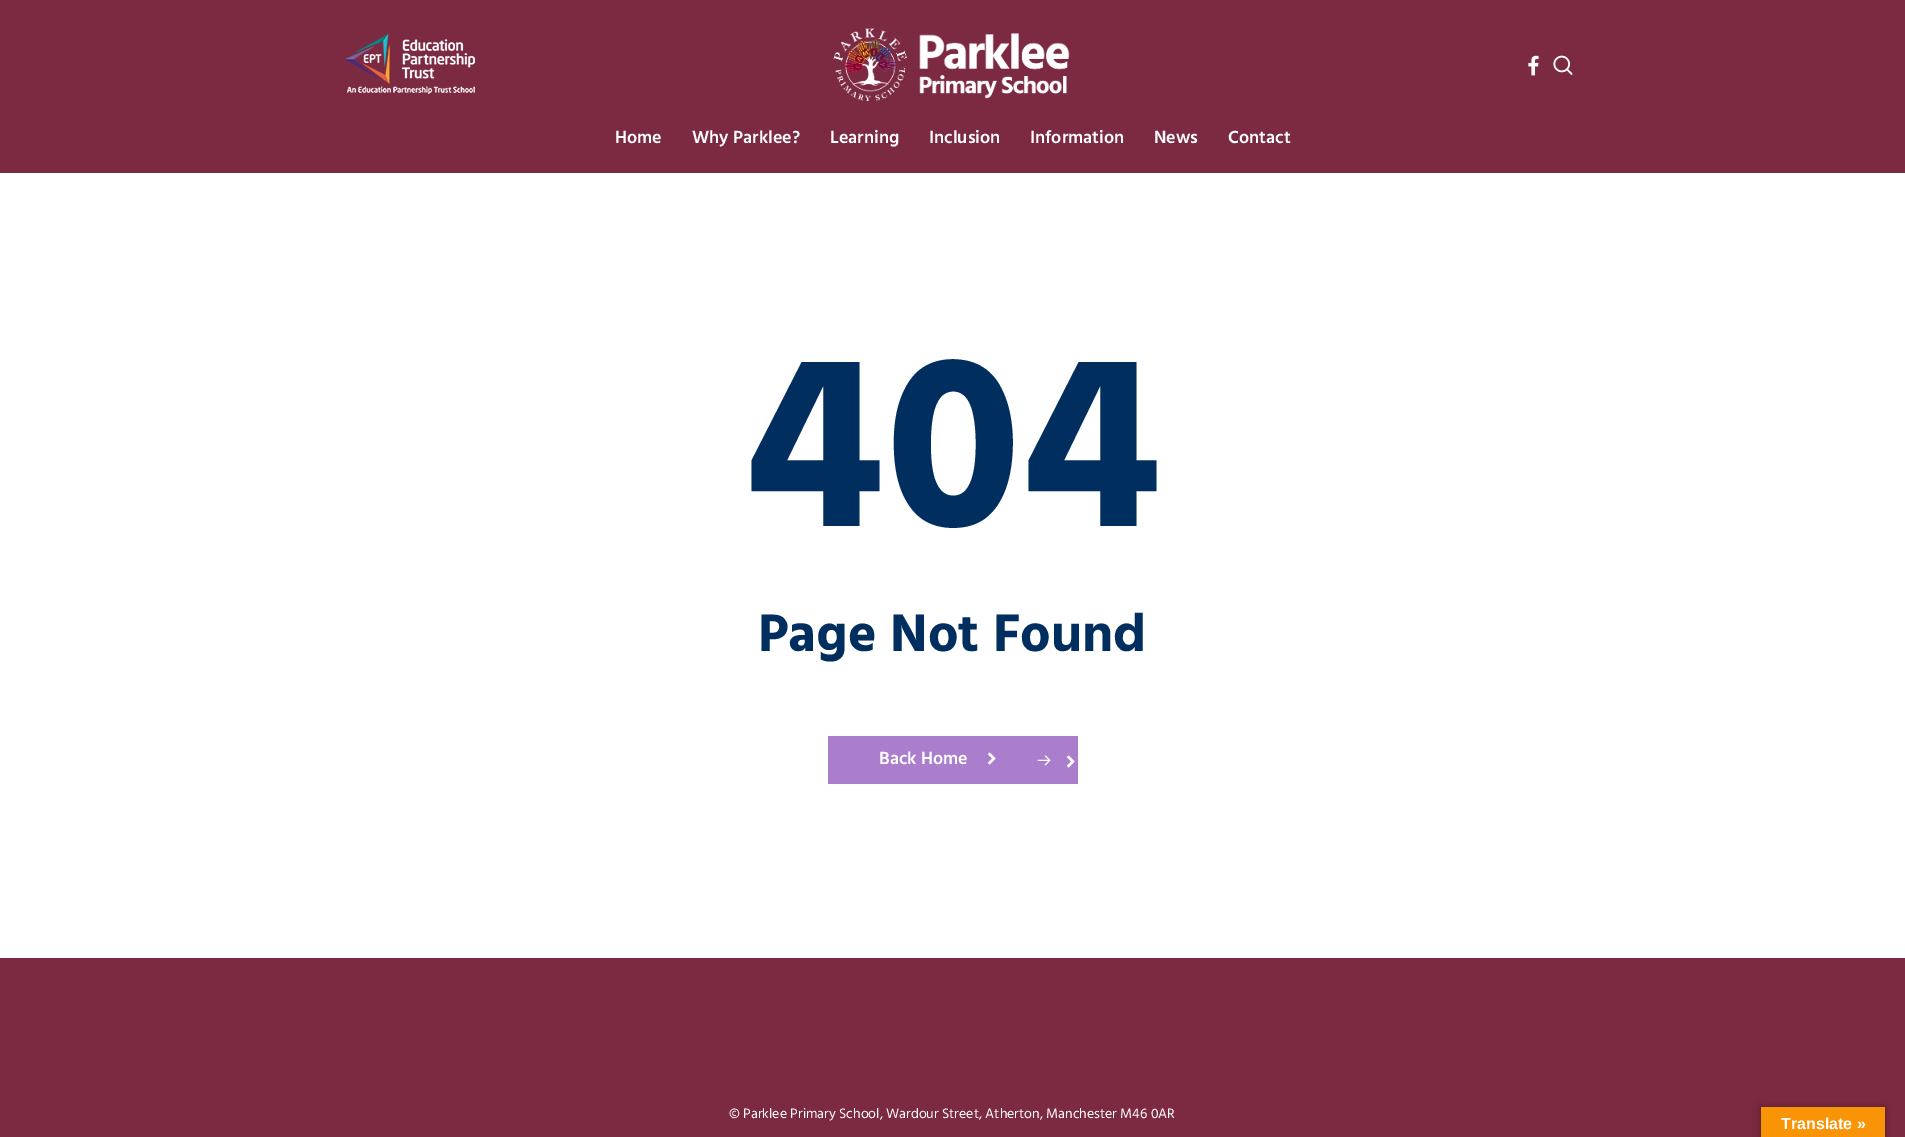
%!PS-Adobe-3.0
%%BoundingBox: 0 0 1905 1137
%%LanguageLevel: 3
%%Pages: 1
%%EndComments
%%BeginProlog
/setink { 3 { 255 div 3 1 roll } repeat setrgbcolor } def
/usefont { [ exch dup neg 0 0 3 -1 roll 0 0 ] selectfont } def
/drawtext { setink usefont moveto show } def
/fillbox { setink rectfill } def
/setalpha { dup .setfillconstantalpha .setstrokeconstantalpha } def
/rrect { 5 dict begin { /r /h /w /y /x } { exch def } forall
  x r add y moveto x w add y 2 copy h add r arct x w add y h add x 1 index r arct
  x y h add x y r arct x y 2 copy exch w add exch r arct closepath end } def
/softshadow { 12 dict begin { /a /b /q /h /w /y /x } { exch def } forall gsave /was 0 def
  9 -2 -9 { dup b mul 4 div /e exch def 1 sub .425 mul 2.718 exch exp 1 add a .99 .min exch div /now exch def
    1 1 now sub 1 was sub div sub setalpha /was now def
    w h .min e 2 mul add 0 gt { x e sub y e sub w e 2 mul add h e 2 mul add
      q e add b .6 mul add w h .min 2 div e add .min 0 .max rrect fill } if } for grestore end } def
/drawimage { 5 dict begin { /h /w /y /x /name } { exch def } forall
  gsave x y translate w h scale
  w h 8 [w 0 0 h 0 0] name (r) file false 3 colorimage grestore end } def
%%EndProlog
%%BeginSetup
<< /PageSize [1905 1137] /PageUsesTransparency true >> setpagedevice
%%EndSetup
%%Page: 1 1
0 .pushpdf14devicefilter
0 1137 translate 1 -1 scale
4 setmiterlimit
0 0 1905 1137 255 255 255 fillbox
0 0 1905 173 124 41 66 fillbox
(assets/img1.rgb) 345 34 130 60 drawimage
(assets/img2.rgb) 833 28 237 74 drawimage
(assets/img3.rgb) 1528 55 11 21 drawimage
(assets/img4.rgb) 1553 55 20 20 drawimage
(Home) 615 143 /Hind-SemiBold 18 255 255 255 drawtext
(Why Parklee?) 692 143 /Hind-SemiBold 18 255 255 255 drawtext
(Learning) 830 143 /Hind-SemiBold 18 255 255 255 drawtext
(Inclusion) 929 143 /Hind-SemiBold 18 255 255 255 drawtext
(Information) 1030 143 /Hind-SemiBold 18 255 255 255 drawtext
(News) 1154 143 /Hind-SemiBold 18 255 255 255 drawtext
(Contact) 1228 143 /Hind-SemiBold 18 255 255 255 drawtext
(404) 744 526 /Hind-Bold 250 0 46 95 drawtext
(Page Not Found) 758 651 /Hind-Bold 54 0 46 95 drawtext
828 736 250 48 170 126 204 fillbox
(Back Home) 879 764 /Hind-SemiBold 18 255 255 255 drawtext
(assets/img5.rgb) 987 752 9 13 drawimage
(assets/img6.rgb) 1037 755 14 11 drawimage
(assets/img5.rgb) 1066 755 9 13 drawimage
0 958 1905 179 124 41 66 fillbox
(© Parklee Primary School, Wardour Street, Atherton, Manchester M46 0AR) 729 1118 /Hind-Regular 14 255 255 255 drawtext
0 0 0 setink
1761 1107 124 30 0 4.5 0.3 softshadow
1761 1107 124 30 248 148 6 fillbox
(Translate ») 1781 1129 /LiberationSans-Bold 16 255 255 255 drawtext
.poppdf14devicefilter showpage
%%EOF
